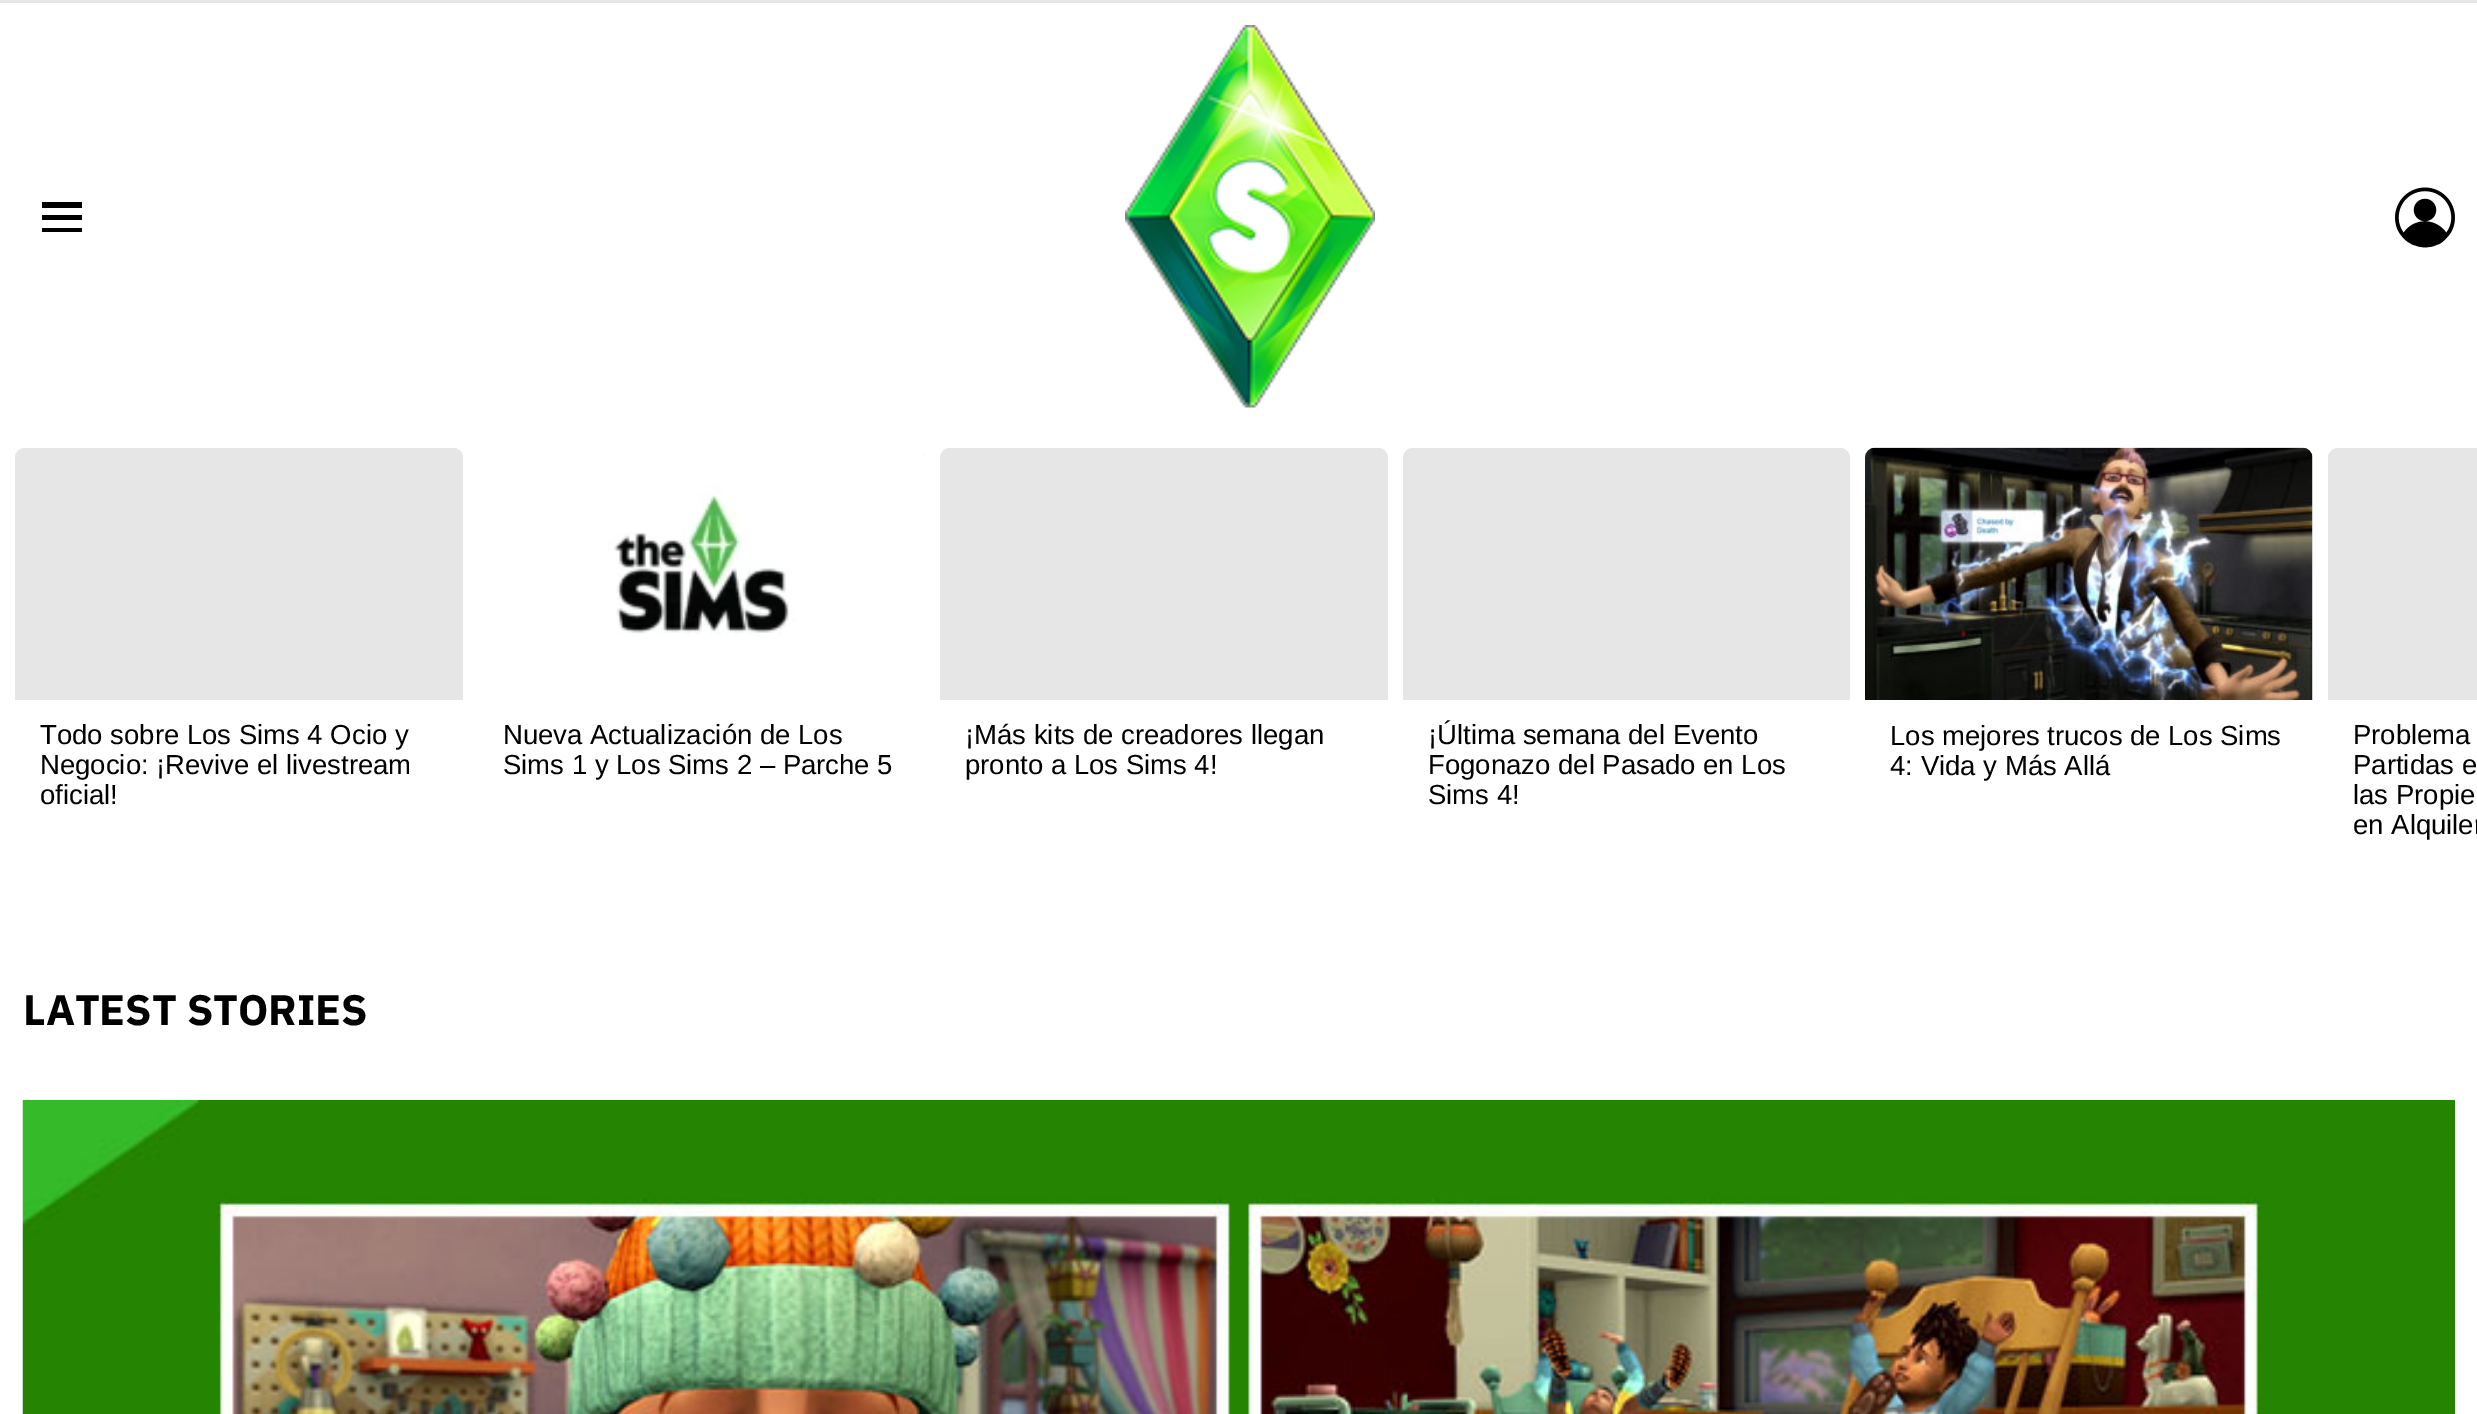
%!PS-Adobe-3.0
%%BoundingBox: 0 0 2477 1414
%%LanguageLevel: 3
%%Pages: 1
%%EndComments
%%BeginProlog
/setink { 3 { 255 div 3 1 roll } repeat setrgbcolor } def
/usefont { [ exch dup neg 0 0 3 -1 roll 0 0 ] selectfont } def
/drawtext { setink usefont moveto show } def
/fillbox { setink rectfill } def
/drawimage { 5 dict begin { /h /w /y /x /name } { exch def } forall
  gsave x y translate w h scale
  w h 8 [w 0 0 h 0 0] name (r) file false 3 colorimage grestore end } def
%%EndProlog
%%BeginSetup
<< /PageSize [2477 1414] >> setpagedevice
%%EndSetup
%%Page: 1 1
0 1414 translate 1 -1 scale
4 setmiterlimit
0 0 2477 1414 255 255 255 fillbox
0 0 2477 3 230 230 230 fillbox
0 0 0 setink
42 202 moveto 82 202 lineto 82 208 lineto 42 208 lineto closepath 42 215 moveto 82 215 lineto 82 220 lineto 42 220 lineto closepath 42 228 moveto 82 228 lineto 82 232 lineto 42 232 lineto closepath fill
(assets/img1.rgb) 1125 25 250 383 drawimage
(assets/img2.rgb) 2395 187 60 61 drawimage
230 230 230 setink
25 448 moveto 453 448 lineto 458.5 448 463 452.5 463 458 curveto 463 700 lineto 15 700 lineto 15 458 lineto 15 452.5 19.5 448 25 448 curveto closepath fill
(Todo sobre Los Sims 4 Ocio y) 40 744 /LiberationSans-Regular 27.5 0 0 0 drawtext
(Negocio: ¡Revive el livestream) 40 774 /LiberationSans-Regular 27.5 0 0 0 drawtext
(oficial!) 40 804 /LiberationSans-Regular 27.5 0 0 0 drawtext
(assets/img3.rgb) 478 448 447 252 drawimage
(Nueva Actualización de Los) 503 744 /LiberationSans-Regular 27.5 0 0 0 drawtext
(Sims 1 y Los Sims 2 – Parche 5) 503 774 /LiberationSans-Regular 27.5 0 0 0 drawtext
230 230 230 setink
950 448 moveto 1378 448 lineto 1383.5 448 1388 452.5 1388 458 curveto 1388 700 lineto 940 700 lineto 940 458 lineto 940 452.5 944.5 448 950 448 curveto closepath fill
(¡Más kits de creadores llegan) 965 744 /LiberationSans-Regular 27.5 0 0 0 drawtext
(pronto a Los Sims 4!) 965 774 /LiberationSans-Regular 27.5 0 0 0 drawtext
230 230 230 setink
1413 448 moveto 1840 448 lineto 1845.5 448 1850 452.5 1850 458 curveto 1850 700 lineto 1403 700 lineto 1403 458 lineto 1403 452.5 1407.5 448 1413 448 curveto closepath fill
(¡Última semana del Evento) 1428 744 /LiberationSans-Regular 27.5 0 0 0 drawtext
(Fogonazo del Pasado en Los) 1428 774 /LiberationSans-Regular 27.5 0 0 0 drawtext
(Sims 4!) 1428 804 /LiberationSans-Regular 27.5 0 0 0 drawtext
230 230 230 setink
1875 448 moveto 2303 448 lineto 2308.5 448 2313 452.5 2313 458 curveto 2313 700 lineto 1865 700 lineto 1865 458 lineto 1865 452.5 1869.5 448 1875 448 curveto closepath fill
(assets/img4.rgb) 1865 447 448 253 drawimage
(Los mejores trucos de Los Sims) 1890 745 /LiberationSans-Regular 27.5 0 0 0 drawtext
(4: Vida y Más Allá) 1890 775 /LiberationSans-Regular 27.5 0 0 0 drawtext
230 230 230 setink
2338 448 moveto 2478 448 lineto 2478 700 lineto 2328 700 lineto 2328 458 lineto 2328 452.5 2332.5 448 2338 448 curveto closepath fill
(Problema) 2353 744 /LiberationSans-Regular 27.5 0 0 0 drawtext
(Partidas e) 2353 774 /LiberationSans-Regular 27.5 0 0 0 drawtext
(las Propie) 2353 804 /LiberationSans-Regular 27.5 0 0 0 drawtext
(en Alquiler) 2353 834 /LiberationSans-Regular 27.5 0 0 0 drawtext
(LATEST STORIES) 23 1025 /IBMPlexSans-Bold 42.5 0 0 0 drawtext
(assets/img5.rgb) 22 1100 2433 314 drawimage
showpage
%%EOF
